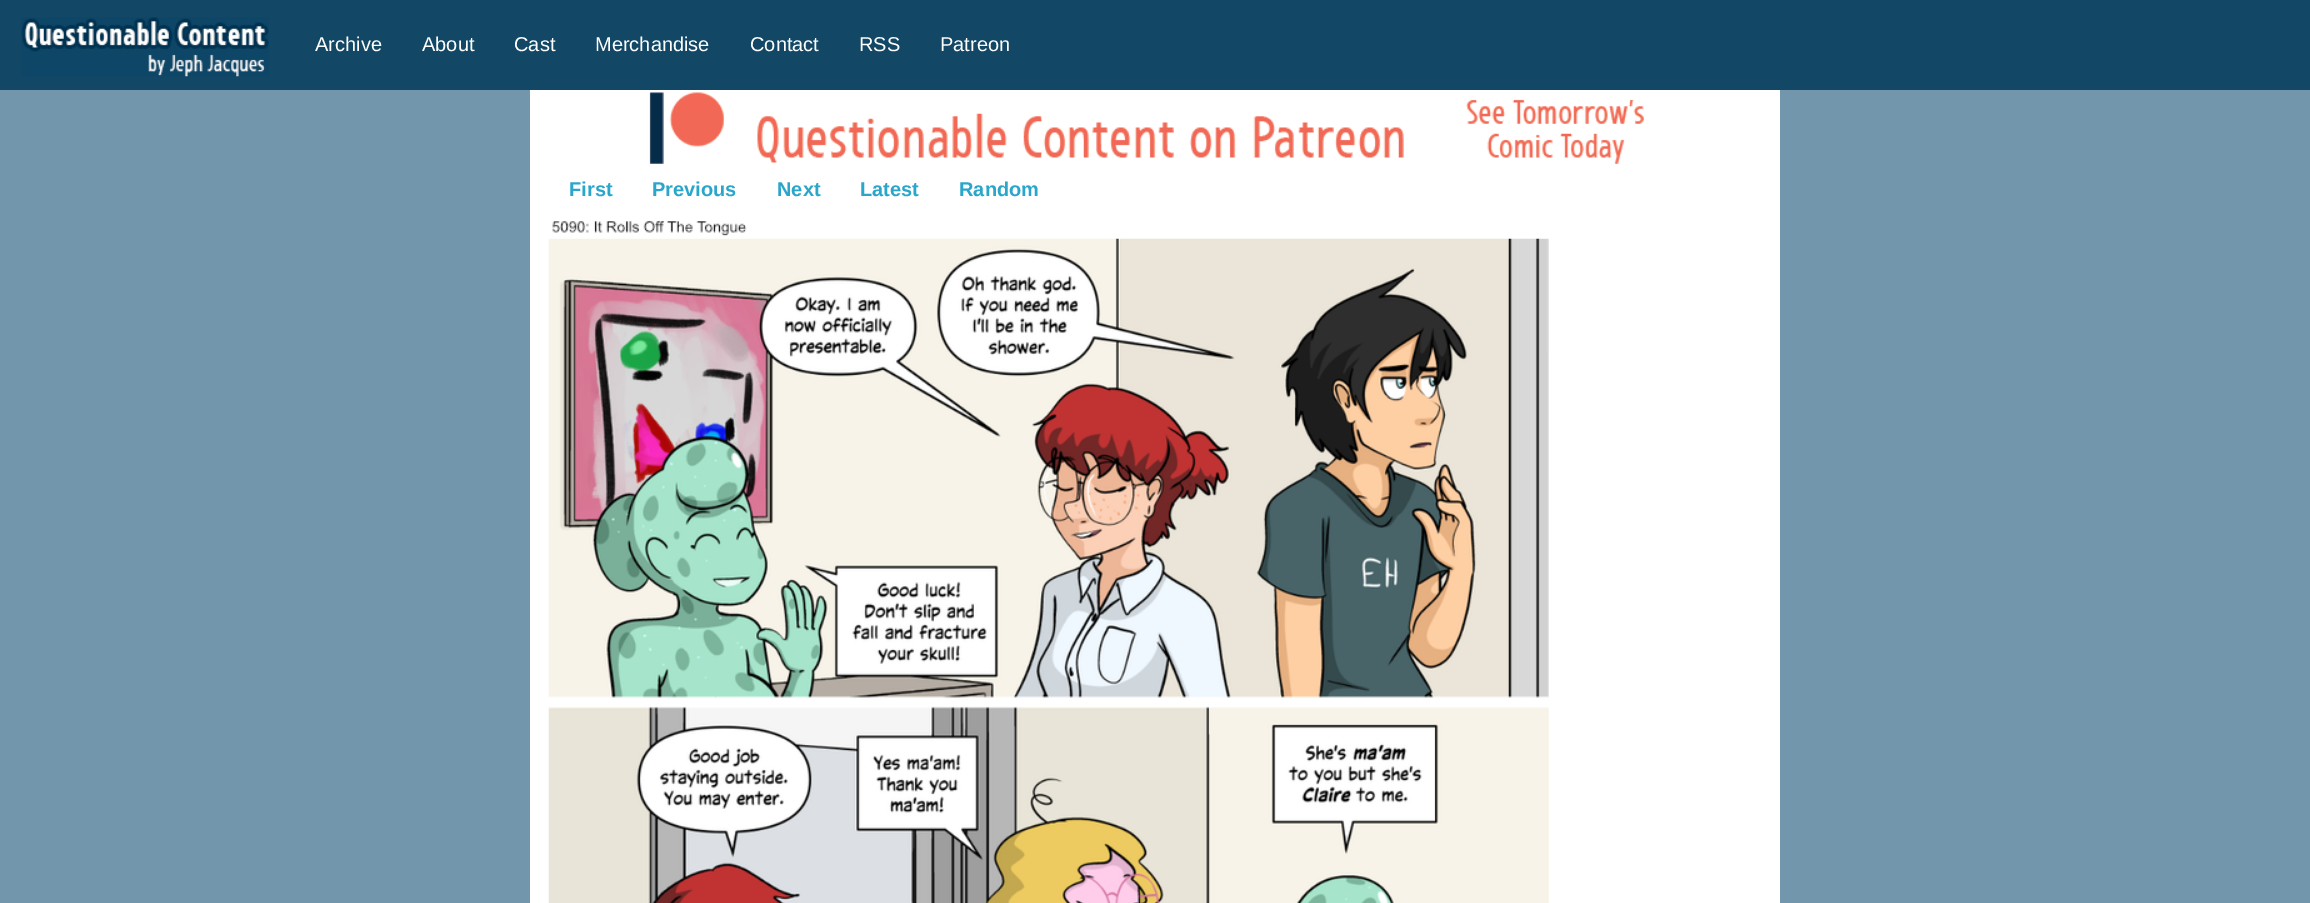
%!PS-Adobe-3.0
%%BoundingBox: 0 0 2310 903
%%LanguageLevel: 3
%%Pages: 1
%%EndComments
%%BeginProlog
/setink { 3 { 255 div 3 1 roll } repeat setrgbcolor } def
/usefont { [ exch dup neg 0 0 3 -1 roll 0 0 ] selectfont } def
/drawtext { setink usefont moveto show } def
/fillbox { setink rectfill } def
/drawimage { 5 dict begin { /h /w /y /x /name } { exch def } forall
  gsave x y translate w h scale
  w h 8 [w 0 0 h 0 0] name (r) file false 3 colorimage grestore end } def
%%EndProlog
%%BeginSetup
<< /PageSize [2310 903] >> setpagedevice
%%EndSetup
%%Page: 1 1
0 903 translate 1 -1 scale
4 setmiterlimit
0 0 2310 903 114 151 172 fillbox
0 0 2310 90 18 71 102 fillbox
(assets/img1.rgb) 21 17 248 60 drawimage
(Archive) 315 51 /LiberationSans-Regular 20 255 255 255 drawtext
(About) 422 51 /LiberationSans-Regular 20 255 255 255 drawtext
(Cast) 514 51 /LiberationSans-Regular 20 255 255 255 drawtext
(Merchandise) 595 51 /LiberationSans-Regular 20 255 255 255 drawtext
(Contact) 750 51 /LiberationSans-Regular 20 255 255 255 drawtext
(RSS) 859 51 /LiberationSans-Regular 20 255 255 255 drawtext
(Patreon) 940 51 /LiberationSans-Regular 20 255 255 255 drawtext
530 90 1250 813 255 255 255 fillbox
(assets/img2.rgb) 649 92 995 72 drawimage
(First) 569 196 /LiberationSans-Bold 20 43 166 203 drawtext
(Previous) 652 196 /LiberationSans-Bold 20 43 166 203 drawtext
(Next) 777 196 /LiberationSans-Bold 20 43 166 203 drawtext
(Latest) 860 196 /LiberationSans-Bold 20 43 166 203 drawtext
(Random) 959 196 /LiberationSans-Bold 20 43 166 203 drawtext
(assets/img3.rgb) 548 220 1001 683 drawimage
showpage
%%EOF
